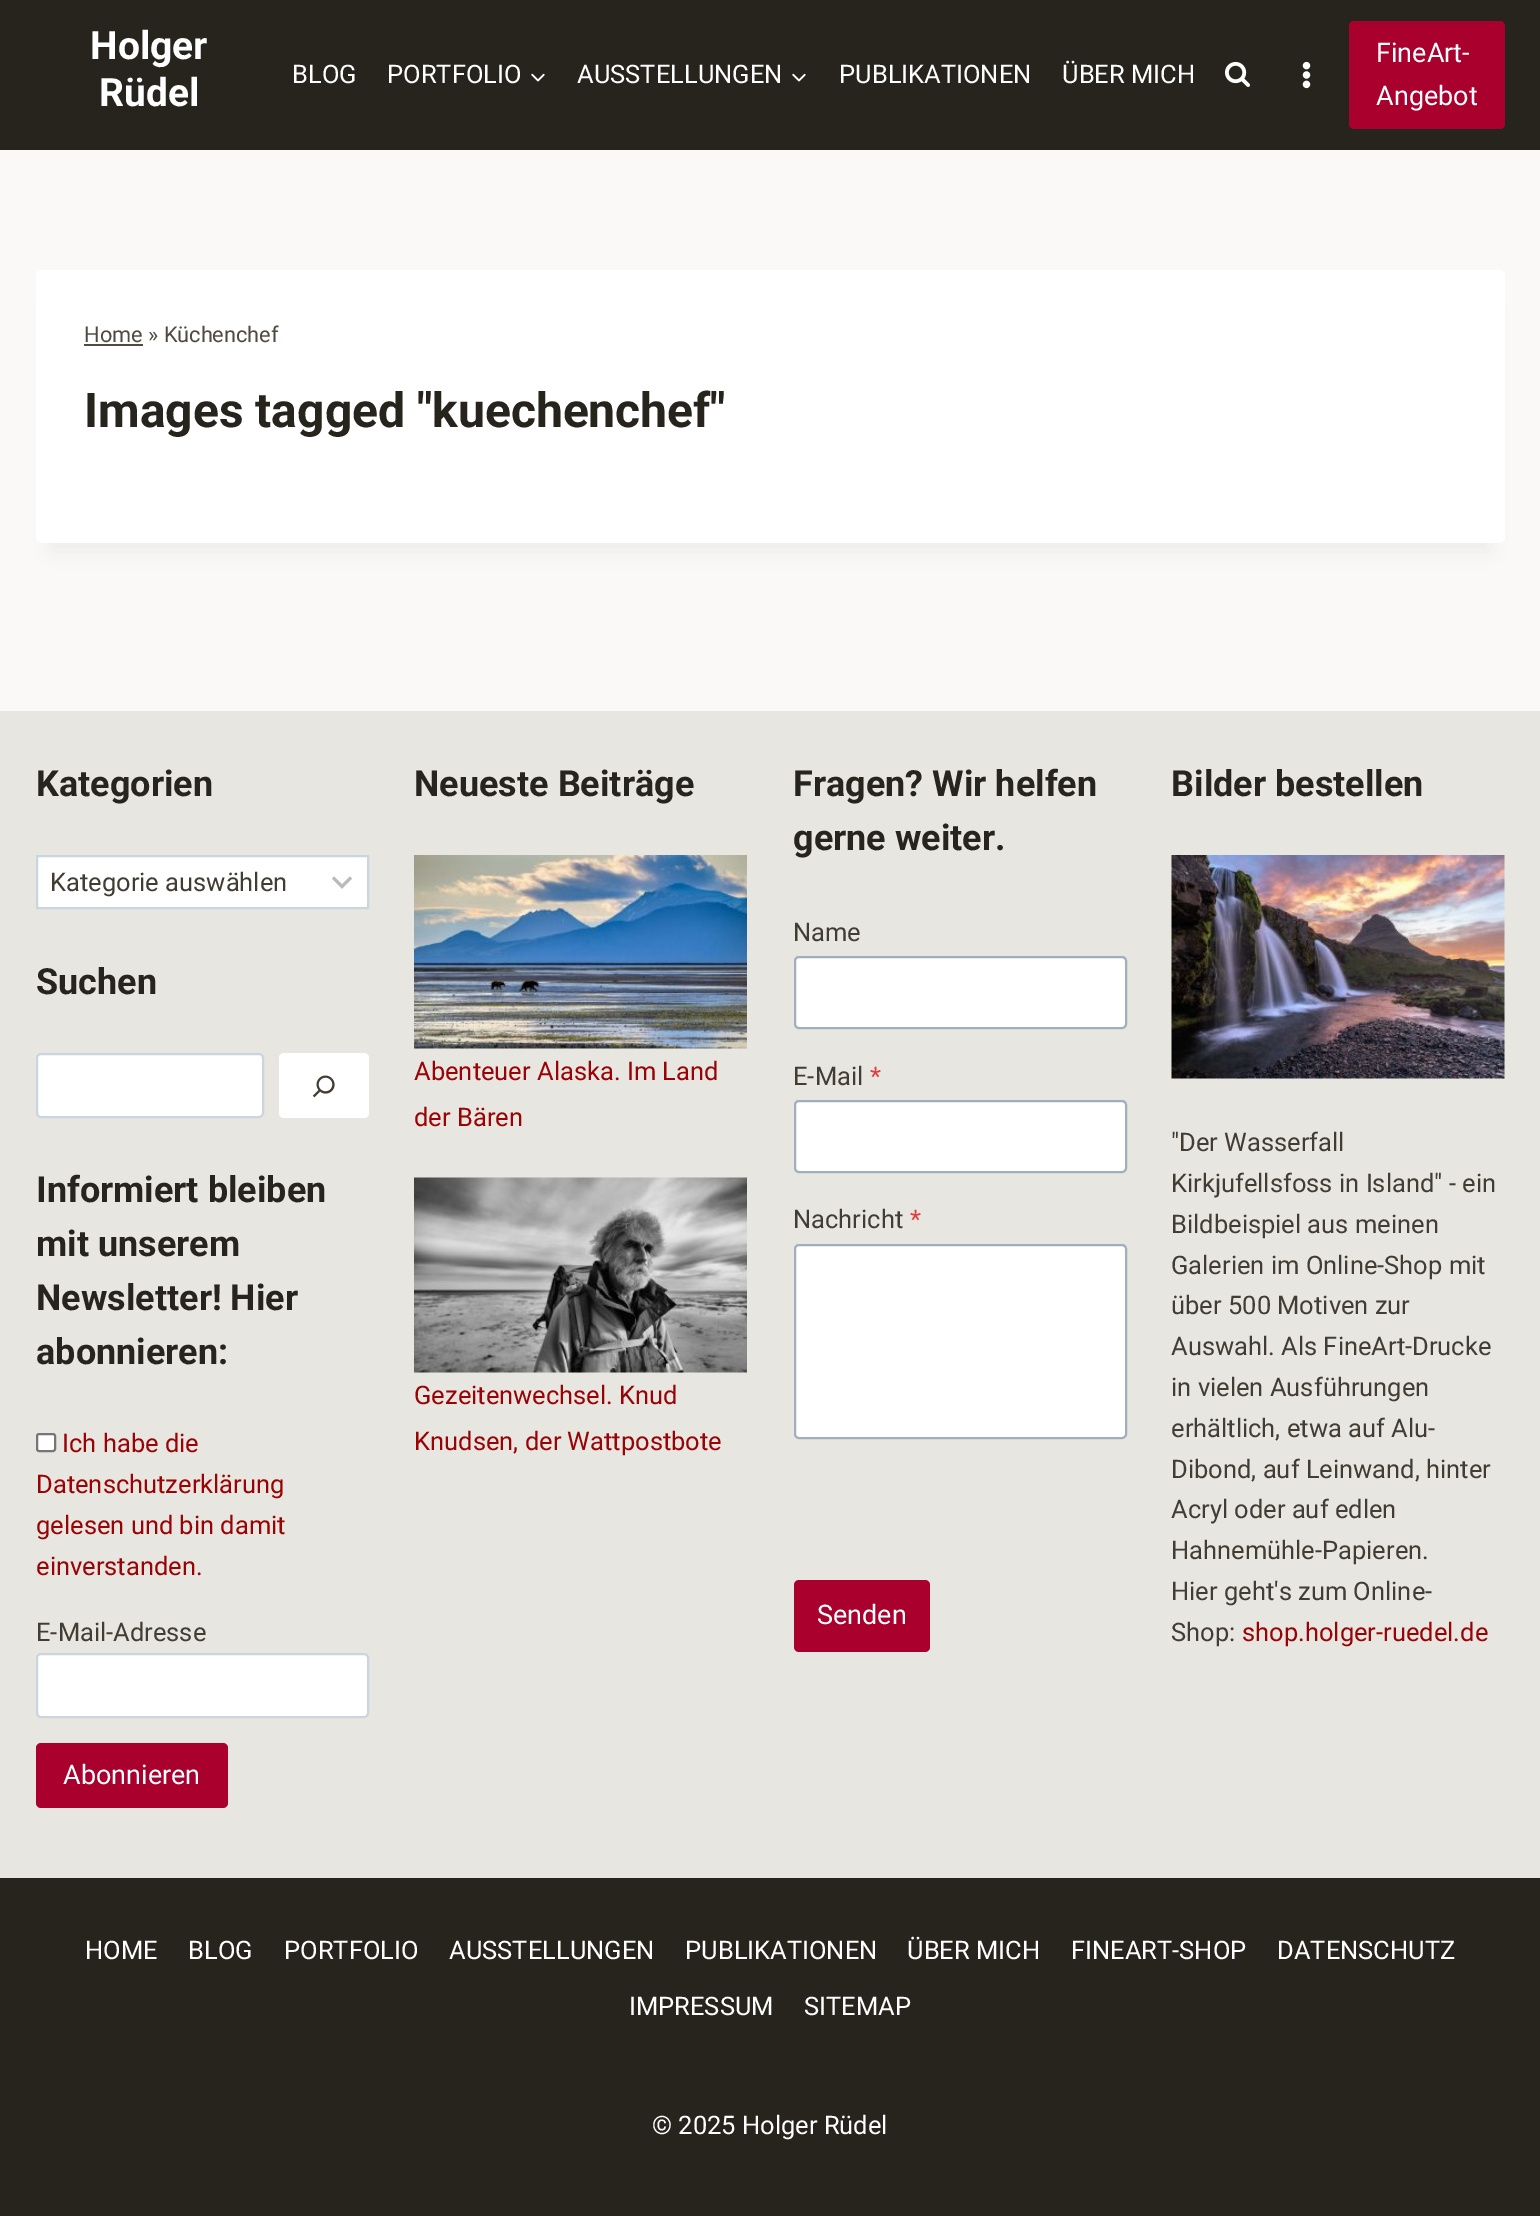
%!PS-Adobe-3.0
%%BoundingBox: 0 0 1540 2216
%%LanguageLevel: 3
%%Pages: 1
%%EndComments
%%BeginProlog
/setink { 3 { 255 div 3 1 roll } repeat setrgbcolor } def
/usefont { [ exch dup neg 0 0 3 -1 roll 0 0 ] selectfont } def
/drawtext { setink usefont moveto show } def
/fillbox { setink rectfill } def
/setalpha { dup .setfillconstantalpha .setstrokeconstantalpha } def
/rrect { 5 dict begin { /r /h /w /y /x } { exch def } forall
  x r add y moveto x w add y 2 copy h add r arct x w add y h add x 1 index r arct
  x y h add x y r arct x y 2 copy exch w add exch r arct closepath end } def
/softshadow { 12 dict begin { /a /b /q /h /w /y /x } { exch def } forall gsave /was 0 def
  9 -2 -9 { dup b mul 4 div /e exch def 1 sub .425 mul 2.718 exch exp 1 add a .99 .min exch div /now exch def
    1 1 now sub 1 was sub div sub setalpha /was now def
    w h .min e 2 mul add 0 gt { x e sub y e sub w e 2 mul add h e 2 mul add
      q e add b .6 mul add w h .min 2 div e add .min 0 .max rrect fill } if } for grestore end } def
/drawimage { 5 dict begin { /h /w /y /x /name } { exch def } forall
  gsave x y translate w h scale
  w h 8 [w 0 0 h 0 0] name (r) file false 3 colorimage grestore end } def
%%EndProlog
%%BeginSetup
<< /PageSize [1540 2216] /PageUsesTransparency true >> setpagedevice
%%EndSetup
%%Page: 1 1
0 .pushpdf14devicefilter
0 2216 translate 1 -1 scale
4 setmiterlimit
0 0 1540 2216 250 249 247 fillbox
0 0 1540 150 39 36 29 fillbox
(Holger) 90 59 /Roboto-Bold 39 255 255 255 drawtext
(Rüdel) 99 106 /Roboto-Bold 39 255 255 255 drawtext
(BLOG) 292 83 /Roboto-Regular 25.5 255 255 255 drawtext
(PORTFOLIO) 387 83 /Roboto-Regular 25.5 255 255 255 drawtext
(assets/img1.rgb) 531 73 14 9 drawimage
(AUSSTELLUNGEN) 577 83 /Roboto-Regular 25.5 255 255 255 drawtext
(assets/img1.rgb) 792 73 14 9 drawimage
(PUBLIKATIONEN) 839 83 /Roboto-Regular 25.5 255 255 255 drawtext
(ÜBER MICH) 1062 83 /Roboto-Regular 25.5 255 255 255 drawtext
(assets/img2.rgb) 1225 61 25 26 drawimage
(assets/img3.rgb) 1302 61 9 28 drawimage
170 0 45 setink
1349 21 156 108 5 rrect fill
(FineArt-) 1376 62 /Roboto-Regular 27 255 255 255 drawtext
(Angebot) 1376 105 /Roboto-Regular 27 255 255 255 drawtext
0 0 0 setink
51 308 1439 243 0 11 0.05 softshadow
255 255 255 setink
36 270 1469 273 6 rrect fill
(Home » Küchenchef) 84 342 /Roboto-Regular 21.75 80 74 64 drawtext
84 344 59 2 80 74 64 fillbox
(Images tagged "kuechenchef") 84 427 /Roboto-Bold 48 39 36 29 drawtext
0 711 1540 1167 232 230 225 fillbox
(Kategorien) 36 796 /Roboto-Bold 36 39 36 29 drawtext
38 857 329 50 255 255 255 fillbox
187 187 187 setink
3 setlinewidth
333 877.5 moveto 342 886.5 lineto 351 877.5 lineto stroke
203 213 224 setink
2 setlinewidth
37 856 331 52 rectstroke
(Kategorie auswählen) 50 891 /Roboto-Regular 25.5 66 61 51 drawtext
(Suchen) 36 994 /Roboto-Bold 36 39 36 29 drawtext
255 255 255 setink
37 1054 226 63 4 rrect gsave fill grestore
203 213 224 setink
stroke
255 255 255 setink
279 1053 90 65 5 rrect fill
(assets/img4.rgb) 312 1075 23 23 drawimage
(Informiert bleiben) 36 1202 /Roboto-Bold 36 39 36 29 drawtext
(mit unserem) 36 1256 /Roboto-Bold 36 39 36 29 drawtext
(Newsletter! Hier) 36 1310 /Roboto-Bold 36 39 36 29 drawtext
(abonnieren:) 36 1364 /Roboto-Bold 36 39 36 29 drawtext
255 255 255 setink
37 1434 18 17 2 rrect gsave fill grestore
118 118 118 setink
stroke
(Ich habe die) 62 1452 /Roboto-Regular 25.5 153 3 5 drawtext
(Datenschutzerklärung) 36 1493 /Roboto-Regular 25.5 153 3 5 drawtext
(gelesen und bin damit) 36 1534 /Roboto-Regular 25.5 153 3 5 drawtext
(einverstanden.) 36 1575 /Roboto-Regular 25.5 153 3 5 drawtext
(E-Mail-Adresse) 36 1641 /Roboto-Regular 25.5 66 61 51 drawtext
255 255 255 setink
37 1654 331 63 4 rrect gsave fill grestore
203 213 224 setink
stroke
170 0 45 setink
36 1743 192 65 5 rrect fill
(Abonnieren) 63 1784 /Roboto-Regular 27 255 255 255 drawtext
(Neueste Beiträge) 414 796 /Roboto-Bold 36 39 36 29 drawtext
(assets/img5.rgb) 414 855 333 194 drawimage
(Abenteuer Alaska. Im Land) 414 1080 /Roboto-Regular 25.5 153 3 5 drawtext
(der Bären) 414 1126 /Roboto-Regular 25.5 153 3 5 drawtext
(assets/img6.rgb) 414 1177 333 196 drawimage
(Gezeitenwechsel. Knud) 414 1404 /Roboto-Regular 25.5 153 3 5 drawtext
(Knudsen, der Wattpostbote) 414 1450 /Roboto-Regular 25.5 153 3 5 drawtext
(Fragen? Wir helfen) 793 796 /Roboto-Bold 36 39 36 29 drawtext
(gerne weiter.) 793 850 /Roboto-Bold 36 39 36 29 drawtext
(Name) 793 941 /Roboto-Regular 25.5 66 61 51 drawtext
255 255 255 setink
795 957 331 71 4 rrect gsave fill grestore
160 174 192 setink
stroke
(E-Mail) 793 1085 /Roboto-Regular 25.5 66 61 51 drawtext
(*) 870 1085 /Roboto-Regular 25.5 229 62 62 drawtext
255 255 255 setink
795 1101 331 71 4 rrect gsave fill grestore
160 174 192 setink
stroke
(Nachricht) 793 1228 /Roboto-Regular 25.5 66 61 51 drawtext
(*) 910 1228 /Roboto-Regular 25.5 229 62 62 drawtext
255 255 255 setink
795 1245 331 193 4 rrect gsave fill grestore
160 174 192 setink
stroke
170 0 45 setink
794 1580 136 72 5 rrect fill
(Senden) 817 1624 /Roboto-Regular 27 255 255 255 drawtext
(Bilder bestellen) 1171 796 /Roboto-Bold 36 39 36 29 drawtext
(assets/img7.rgb) 1171 855 334 224 drawimage
("Der Wasserfall) 1171 1151 /Roboto-Regular 25.5 66 61 51 drawtext
(Kirkjufellsfoss in Island" - ein) 1171 1192 /Roboto-Regular 25.5 66 61 51 drawtext
(Bildbeispiel aus meinen) 1171 1233 /Roboto-Regular 25.5 66 61 51 drawtext
(Galerien im Online-Shop mit) 1171 1274 /Roboto-Regular 25.5 66 61 51 drawtext
(über 500 Motiven zur) 1171 1314 /Roboto-Regular 25.5 66 61 51 drawtext
(Auswahl. Als FineArt-Drucke) 1171 1355 /Roboto-Regular 25.5 66 61 51 drawtext
(in vielen Ausführungen) 1171 1396 /Roboto-Regular 25.5 66 61 51 drawtext
(erhältlich, etwa auf Alu-) 1171 1437 /Roboto-Regular 25.5 66 61 51 drawtext
(Dibond, auf Leinwand, hinter) 1171 1478 /Roboto-Regular 25.5 66 61 51 drawtext
(Acryl oder auf edlen) 1171 1518 /Roboto-Regular 25.5 66 61 51 drawtext
(Hahnemühle-Papieren.) 1171 1559 /Roboto-Regular 25.5 66 61 51 drawtext
(Hier geht's zum Online-) 1171 1600 /Roboto-Regular 25.5 66 61 51 drawtext
(Shop:) 1171 1641 /Roboto-Regular 25.5 66 61 51 drawtext
(shop.holger-ruedel.de) 1242 1641 /Roboto-Regular 25.5 153 3 5 drawtext
0 1878 1540 338 39 36 29 fillbox
(HOME) 85 1959 /Roboto-Regular 25.5 255 255 255 drawtext
(BLOG) 188 1959 /Roboto-Regular 25.5 255 255 255 drawtext
(PORTFOLIO) 284 1959 /Roboto-Regular 25.5 255 255 255 drawtext
(AUSSTELLUNGEN) 449 1959 /Roboto-Regular 25.5 255 255 255 drawtext
(PUBLIKATIONEN) 685 1959 /Roboto-Regular 25.5 255 255 255 drawtext
(ÜBER MICH) 907 1959 /Roboto-Regular 25.5 255 255 255 drawtext
(FINEART-SHOP) 1071 1959 /Roboto-Regular 25.5 255 255 255 drawtext
(DATENSCHUTZ) 1277 1959 /Roboto-Regular 25.5 255 255 255 drawtext
(IMPRESSUM) 629 2015 /Roboto-Regular 25.5 255 255 255 drawtext
(SITEMAP) 804 2015 /Roboto-Regular 25.5 255 255 255 drawtext
(© 2025 Holger Rüdel) 652 2134 /Roboto-Regular 25.5 255 255 255 drawtext
.poppdf14devicefilter showpage
%%EOF
